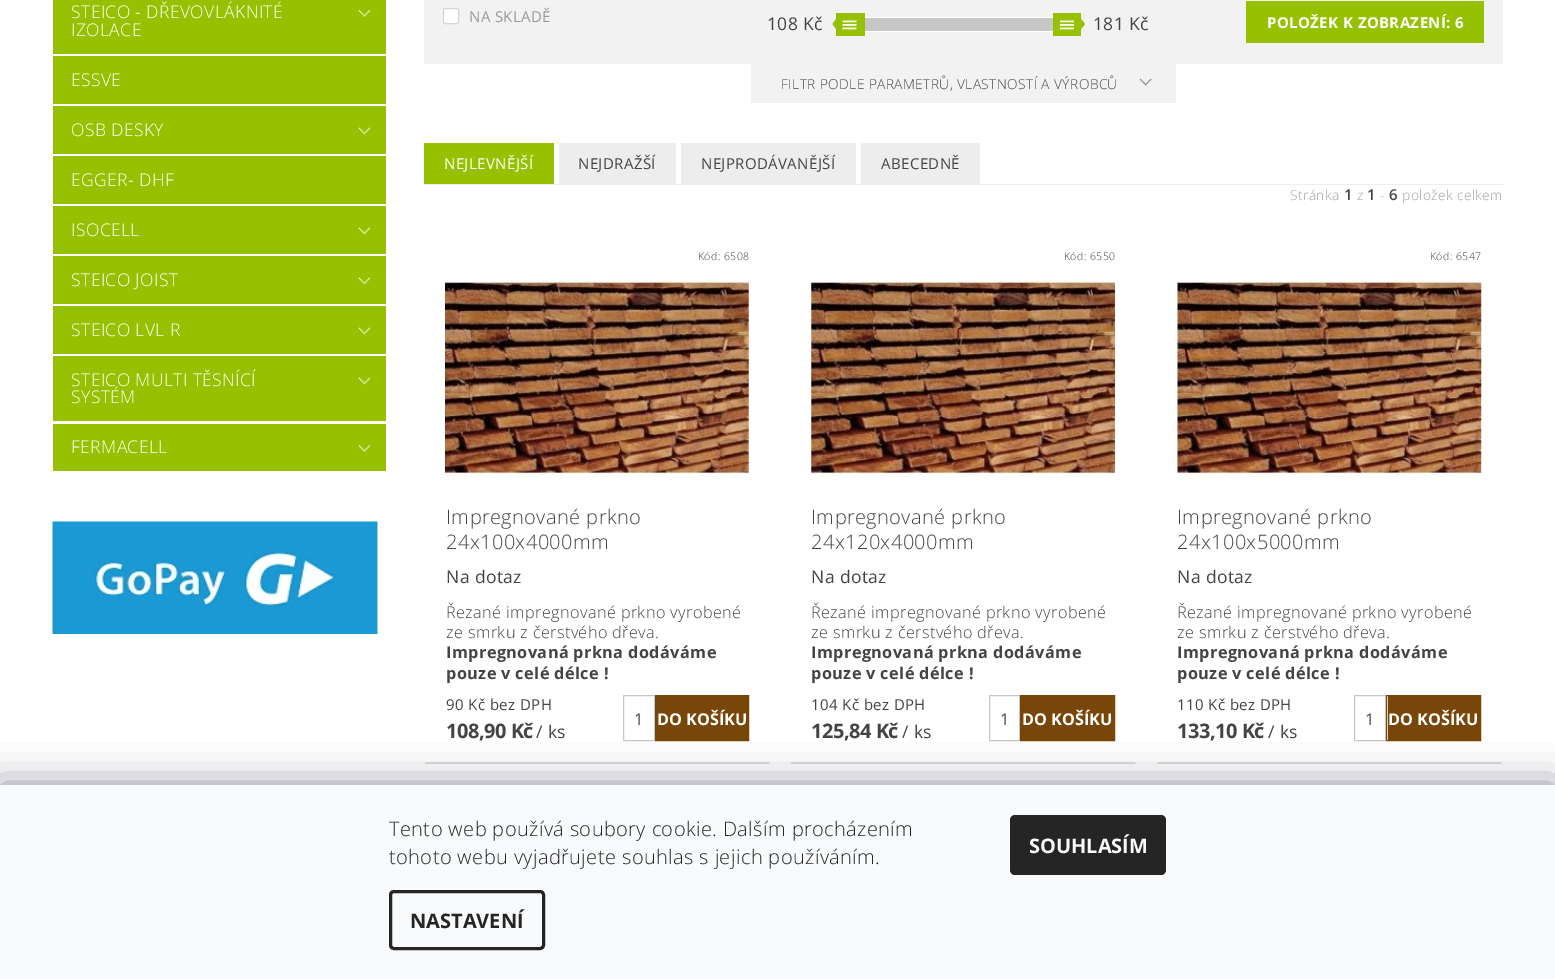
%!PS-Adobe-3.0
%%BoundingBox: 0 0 1555 979
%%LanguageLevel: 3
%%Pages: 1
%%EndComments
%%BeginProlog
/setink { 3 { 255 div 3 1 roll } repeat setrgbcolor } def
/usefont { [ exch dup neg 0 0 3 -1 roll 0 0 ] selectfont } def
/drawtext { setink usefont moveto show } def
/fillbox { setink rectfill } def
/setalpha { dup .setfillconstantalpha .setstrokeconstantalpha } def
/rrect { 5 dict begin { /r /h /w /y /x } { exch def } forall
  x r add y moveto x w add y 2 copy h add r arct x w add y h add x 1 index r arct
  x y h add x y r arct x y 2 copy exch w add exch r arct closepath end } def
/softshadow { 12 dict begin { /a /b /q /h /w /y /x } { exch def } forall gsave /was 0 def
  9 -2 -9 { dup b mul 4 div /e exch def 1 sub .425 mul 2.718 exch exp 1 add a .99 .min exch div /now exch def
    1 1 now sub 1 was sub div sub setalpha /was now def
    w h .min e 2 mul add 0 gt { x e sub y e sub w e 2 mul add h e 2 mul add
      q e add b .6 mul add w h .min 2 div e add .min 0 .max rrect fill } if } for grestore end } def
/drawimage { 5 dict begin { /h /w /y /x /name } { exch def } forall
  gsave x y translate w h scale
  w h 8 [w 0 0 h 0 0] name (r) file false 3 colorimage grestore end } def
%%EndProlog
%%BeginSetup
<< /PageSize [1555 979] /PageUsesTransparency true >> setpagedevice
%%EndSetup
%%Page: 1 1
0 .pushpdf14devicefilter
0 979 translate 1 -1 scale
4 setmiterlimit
0 0 1555 979 255 255 255 fillbox
53 0 333 54 150 193 0 fillbox
(assets/img1.rgb) 358 10 12 7 drawimage
/OpenSans-Light 17.5 usefont
255 255 255 setink
71 18 moveto 0.4 0 (STEICO - DŘEVOVLÁKNITÉ) ashow
71 36 moveto 0.4 0 (IZOLACE) ashow
53 56 333 48 150 193 0 fillbox
255 255 255 setink
71 86 moveto 0.4 0 (ESSVE) ashow
53 106 333 48 150 193 0 fillbox
(assets/img2.rgb) 358 127 12 8 drawimage
255 255 255 setink
71 136 moveto 0.4 0 (OSB DESKY) ashow
53 156 333 48 150 193 0 fillbox
255 255 255 setink
71 186 moveto 0.4 0 (EGGER- DHF) ashow
53 206 333 48 150 193 0 fillbox
(assets/img2.rgb) 358 227 12 8 drawimage
255 255 255 setink
71 236 moveto 0.4 0 (ISOCELL) ashow
53 256 333 48 150 193 0 fillbox
(assets/img2.rgb) 358 277 12 8 drawimage
255 255 255 setink
71 286 moveto 0.4 0 (STEICO JOIST) ashow
53 306 333 48 150 193 0 fillbox
(assets/img2.rgb) 358 327 12 8 drawimage
255 255 255 setink
71 336 moveto 0.4 0 (STEICO LVL R) ashow
53 356 333 65 150 193 0 fillbox
(assets/img2.rgb) 358 377 12 8 drawimage
255 255 255 setink
71 386 moveto 0.4 0 (STEICO MULTI TĚSNÍCÍ) ashow
71 403 moveto 0.4 0 (SYSTÉM) ashow
53 424 333 47 150 193 0 fillbox
(assets/img1.rgb) 358 445 12 7 drawimage
255 255 255 setink
71 453 moveto 0.4 0 (FERMACELL) ashow
(assets/img3.rgb) 52 521 326 113 drawimage
424 0 1079 64 242 242 242 fillbox
255 255 255 setink
443 8 16 16 2.5 rrect fill
0.3 setalpha
118 118 118 setink
443.5 8.5 15 15 2 rrect stroke
/OpenSans-Regular 15 usefont
1 setalpha
153 153 153 setink
469 22 moveto 0.4 0 (NA SKLADĚ) ashow
/OpenSans-Regular 17.5 usefont
68 68 68 setink
767 30 moveto 0.4 0 (108 Kč) ashow
865 17 188 15 255 255 255 fillbox
836 13 29 23 150 193 0 fillbox
836 19 moveto 836 29 lineto 832.5 24 lineto closepath fill
(assets/img4.rgb) 842 20 15 10 drawimage
865 18 188 13 199 199 199 fillbox
1053 13 28 23 150 193 0 fillbox
(assets/img5.rgb) 1060 20 14 10 drawimage
1081 29 moveto 1081 19 lineto 1085 24 lineto closepath fill
68 68 68 setink
1093 30 moveto 0.4 0 (181 Kč) ashow
1246 1 238 42 150 193 0 fillbox
/OpenSans-Bold 15 usefont
255 255 255 setink
1267 28 moveto 0.4 0 (POLOŽEK K ZOBRAZENÍ: 6) ashow
751 64 425 39 242 242 242 fillbox
(assets/img6.rgb) 1139 78 13 8 drawimage
/OpenSans-Light 13.75 usefont
68 68 68 setink
781 89 moveto 0.4 0 (FILTR PODLE PARAMETRŮ, VLASTNOSTÍ A VÝROBCŮ) ashow
424 184 1079 1 237 237 237 fillbox
424 143 130 41 150 193 0 fillbox
/OpenSans-Regular 15 usefont
255 255 255 setink
444 169 moveto 0.4 0 (NEJLEVNĚJŠÍ) ashow
559 143 117 41 237 237 237 fillbox
68 68 68 setink
578 169 moveto 0.4 0 (NEJDRAŽŠÍ) ashow
681 143 175 41 237 237 237 fillbox
68 68 68 setink
701 169 moveto 0.4 0 (NEJPRODÁVANĚJŠÍ) ashow
861 143 119 41 237 237 237 fillbox
68 68 68 setink
881 169 moveto 0.4 0 (ABECEDNĚ) ashow
/OpenSans-Light 13.75 usefont
160 160 160 setink
1290 200 moveto 0.4 0 (Stránka) ashow
/OpenSans-SemiBold 15 usefont
68 68 68 setink
1344 200 moveto 0.4 0 (1) ashow
/OpenSans-Light 13.75 usefont
160 160 160 setink
1357 200 moveto 0.4 0 (z) ashow
/OpenSans-SemiBold 15 usefont
68 68 68 setink
1367 200 moveto 0.4 0 (1) ashow
/OpenSans-Light 13.75 usefont
160 160 160 setink
1380 200 moveto 0.4 0 (-) ashow
/OpenSans-SemiBold 15 usefont
68 68 68 setink
1389 200 moveto 0.4 0 (6) ashow
/OpenSans-Light 13.75 usefont
160 160 160 setink
1402 200 moveto 0.4 0 (položek celkem) ashow
224 224 224 setink
770 764 moveto 424 764 lineto 426 761 lineto 768 761 lineto closepath fill
255 255 255 setink
424 764 moveto 424 229 lineto 426 231 lineto 426 761 lineto closepath fill
/OpenSans-Light 10.5 usefont
68 68 68 setink
698 260 moveto 0.4 0 (Kód: 6508) ashow
(assets/img7.rgb) 445 279 304 202 drawimage
/OpenSans-Light 20 usefont
446 524 moveto 0.4 0 (Impregnované prkno) ashow
446 549 moveto 0.4 0 (24x100x4000mm) ashow
/OpenSans-Regular 17.5 usefont
446 583 moveto 0.4 0 (Na dotaz) ashow
/OpenSans-Light 16.25 usefont
446 618 moveto 0.4 0 (Řezané impregnované prkno vyrobené) ashow
446 638 moveto 0.4 0 (ze smrku z čerstvého dřeva.) ashow
/OpenSans-Bold 16.25 usefont
446 658 moveto 0.4 0 (Impregnovaná prkna dodáváme) ashow
446 679 moveto 0.4 0 (pouze v celé délce !) ashow
/OpenSans-Regular 15 usefont
446 710 moveto 0.4 0 (90 Kč bez DPH) ashow
/OpenSans-Bold 20 usefont
446 738 moveto -0.5 0 (108,90 Kč) ashow
/OpenSans-Regular 17.5 usefont
536 738 moveto 0.4 0 (/ ks) ashow
198 198 198 setink
623.5 695.5 31 45 rectstroke
(1) 634 725 /OpenSans-Regular 16.25 68 68 68 drawtext
119 70 8 setink
655.5 695.5 93 45 rectstroke
656 696 92 44 119 70 8 fillbox
(DO KOŠÍKU) 657 725 /OpenSans-Bold 16.25 255 255 255 drawtext
424 761 347 1 255 255 255 fillbox
224 224 224 setink
1136 764 moveto 790 764 lineto 792 761 lineto 1134 761 lineto closepath fill
255 255 255 setink
790 764 moveto 790 229 lineto 792 231 lineto 792 761 lineto closepath fill
/OpenSans-Light 10.5 usefont
68 68 68 setink
1064 260 moveto 0.4 0 (Kód: 6550) ashow
(assets/img8.rgb) 811 279 304 202 drawimage
/OpenSans-Light 20 usefont
811 524 moveto 0.4 0 (Impregnované prkno) ashow
811 549 moveto 0.4 0 (24x120x4000mm) ashow
/OpenSans-Regular 17.5 usefont
811 583 moveto 0.4 0 (Na dotaz) ashow
/OpenSans-Light 16.25 usefont
811 618 moveto 0.4 0 (Řezané impregnované prkno vyrobené) ashow
811 638 moveto 0.4 0 (ze smrku z čerstvého dřeva.) ashow
/OpenSans-Bold 16.25 usefont
811 658 moveto 0.4 0 (Impregnovaná prkna dodáváme) ashow
811 679 moveto 0.4 0 (pouze v celé délce !) ashow
/OpenSans-Regular 15 usefont
811 710 moveto 0.4 0 (104 Kč bez DPH) ashow
/OpenSans-Bold 20 usefont
811 738 moveto -0.5 0 (125,84 Kč) ashow
/OpenSans-Regular 17.5 usefont
902 738 moveto 0.4 0 (/ ks) ashow
198 198 198 setink
989.5 695.5 30 45 rectstroke
(1) 1000 725 /OpenSans-Regular 16.25 68 68 68 drawtext
119 70 8 setink
1020.5 695.5 94 45 rectstroke
1021 696 93 44 119 70 8 fillbox
(DO KOŠÍKU) 1022 725 /OpenSans-Bold 16.25 255 255 255 drawtext
789 761 349 1 255 255 255 fillbox
224 224 224 setink
1502 764 moveto 1156 764 lineto 1159 761 lineto 1500 761 lineto closepath fill
255 255 255 setink
1156 764 moveto 1156 229 lineto 1159 231 lineto 1159 761 lineto closepath fill
/OpenSans-Light 10.5 usefont
68 68 68 setink
1430 260 moveto 0.4 0 (Kód: 6547) ashow
(assets/img9.rgb) 1177 279 305 202 drawimage
/OpenSans-Light 20 usefont
1177 524 moveto 0.4 0 (Impregnované prkno) ashow
1177 549 moveto 0.4 0 (24x100x5000mm) ashow
/OpenSans-Regular 17.5 usefont
1177 583 moveto 0.4 0 (Na dotaz) ashow
/OpenSans-Light 16.25 usefont
1177 618 moveto 0.4 0 (Řezané impregnované prkno vyrobené) ashow
1177 638 moveto 0.4 0 (ze smrku z čerstvého dřeva.) ashow
/OpenSans-Bold 16.25 usefont
1177 658 moveto 0.4 0 (Impregnovaná prkna dodáváme) ashow
1177 679 moveto 0.4 0 (pouze v celé délce !) ashow
/OpenSans-Regular 15 usefont
1177 710 moveto 0.4 0 (110 Kč bez DPH) ashow
/OpenSans-Bold 20 usefont
1177 738 moveto -0.5 0 (133,10 Kč) ashow
/OpenSans-Regular 17.5 usefont
1268 738 moveto 0.4 0 (/ ks) ashow
198 198 198 setink
1354.5 695.5 31 45 rectstroke
(1) 1365 725 /OpenSans-Regular 16.25 68 68 68 drawtext
119 70 8 setink
1386.5 695.5 94 45 rectstroke
1388 696 92 44 119 70 8 fillbox
(DO KOŠÍKU) 1388 725 /OpenSans-Bold 16.25 255 255 255 drawtext
1155 761 348 1 255 255 255 fillbox
27 25 57 setink
0 785 1555 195 0 19 0.5 softshadow
0 785 1555 194 248 250 251 fillbox
/OpenSans-Light 20 usefont
37 37 37 setink
389 836 moveto 0.4 0 (Tento web používá soubory cookie. Dalším procházením) ashow
389 864 moveto 0.4 0 (tohoto webu vyjadřujete souhlas s jejich používáním.) ashow
3 setlinewidth
390.5 891.5 153 57 3.5 rrect stroke
(NASTAVENÍ) 410 928 /OpenSans-Bold 20 37 37 37 drawtext
1010 815 156 60 5 rrect fill
(SOUHLASÍM) 1029 853 /OpenSans-Bold 20 248 250 251 drawtext
.poppdf14devicefilter showpage
%%EOF
